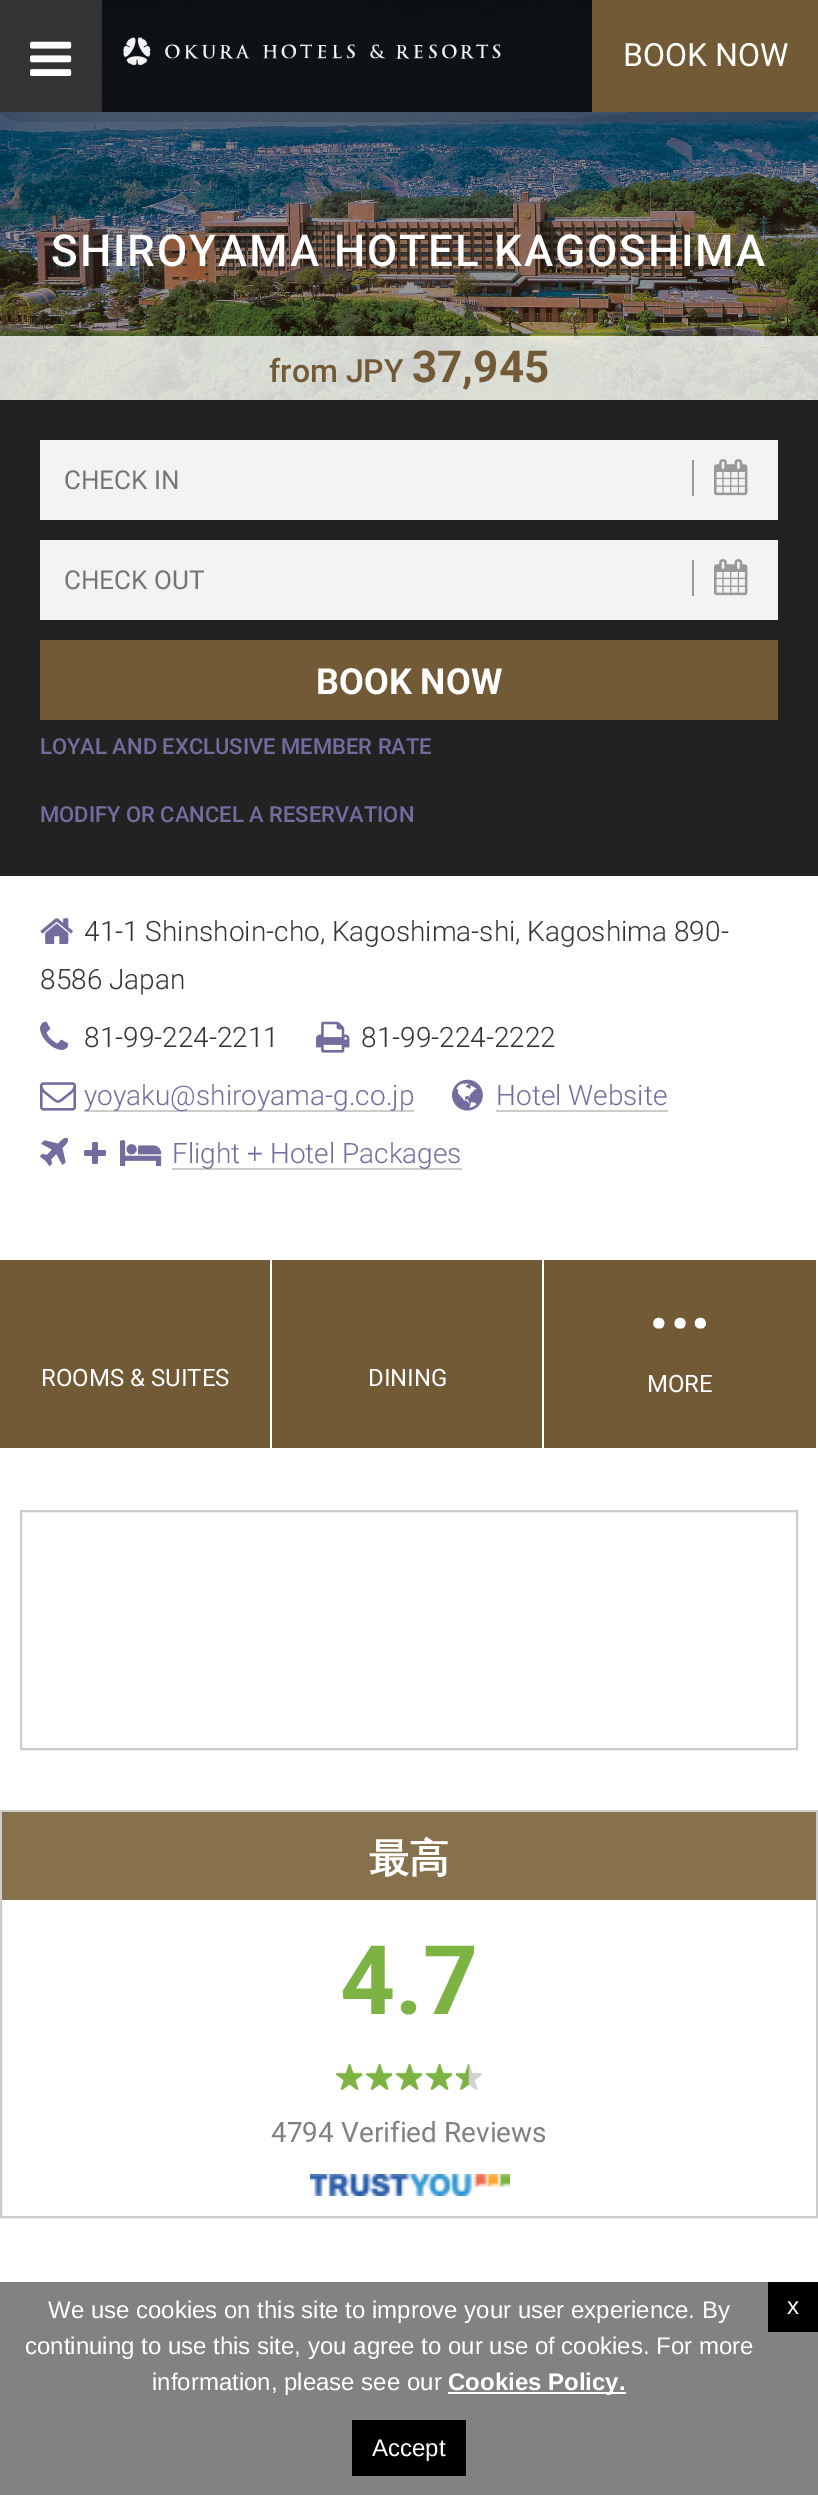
%!PS-Adobe-3.0
%%BoundingBox: 0 0 818 2495
%%LanguageLevel: 3
%%Pages: 1
%%EndComments
%%BeginProlog
/setink { 3 { 255 div 3 1 roll } repeat setrgbcolor } def
/usefont { [ exch dup neg 0 0 3 -1 roll 0 0 ] selectfont } def
/drawtext { setink usefont moveto show } def
/fillbox { setink rectfill } def
/setalpha { dup .setfillconstantalpha .setstrokeconstantalpha } def
/rrect { 5 dict begin { /r /h /w /y /x } { exch def } forall
  x r add y moveto x w add y 2 copy h add r arct x w add y h add x 1 index r arct
  x y h add x y r arct x y 2 copy exch w add exch r arct closepath end } def
/softshadow { 12 dict begin { /a /b /q /h /w /y /x } { exch def } forall gsave /was 0 def
  9 -2 -9 { dup b mul 4 div /e exch def 1 sub .425 mul 2.718 exch exp 1 add a .99 .min exch div /now exch def
    1 1 now sub 1 was sub div sub setalpha /was now def
    w h .min e 2 mul add 0 gt { x e sub y e sub w e 2 mul add h e 2 mul add
      q e add b .6 mul add w h .min 2 div e add .min 0 .max rrect fill } if } for grestore end } def
/drawimage { 5 dict begin { /h /w /y /x /name } { exch def } forall
  gsave x y translate w h scale
  w h 8 [w 0 0 h 0 0] name (r) file false 3 colorimage grestore end } def
%%EndProlog
%%BeginSetup
<< /PageSize [818 2495] /PageUsesTransparency true >> setpagedevice
%%EndSetup
%%Page: 1 1
0 .pushpdf14devicefilter
0 2495 translate 1 -1 scale
4 setmiterlimit
0 0 818 2495 255 255 255 fillbox
(assets/img3.rgb) 0 0 818 400 drawimage
gsave
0 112 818 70 rectclip
0 0 0 setink
0 0 818 112 0 40 0.5 softshadow
grestore
0.85 setalpha
102 0 490 112 0 0 0 fillbox
1 setalpha
0 0 102 112 51 51 51 fillbox
(assets/img1.rgb) 30 41 42 35 drawimage
(assets/img2.rgb) 123 37 378 29 drawimage
592 0 226 112 114 90 55 fillbox
(BOOK NOW) 623 66 /Roboto-Regular 32 255 255 255 drawtext
/Roboto-Medium 44 usefont
51 266 moveto 2 0 (SHIROYAMA HOTEL KAGOSHIMA) ashow
0.8 setalpha
0 336 818 64 255 255 255 fillbox
1 setalpha
(from JPY) 269 382 /Roboto-Medium 32 114 90 55 drawtext
(37,945) 412 382 /Roboto-Bold 44 114 90 55 drawtext
0 400 818 476 34 34 34 fillbox
40 440 738 80 243 243 243 fillbox
(CHECK IN) 64 489 /Roboto-Regular 26 117 117 117 drawtext
692 460 2 36 153 153 153 fillbox
(assets/img4.rgb) 714 459 34 37 drawimage
40 540 738 80 243 243 243 fillbox
(CHECK OUT) 64 589 /Roboto-Regular 26 117 117 117 drawtext
692 560 2 36 153 153 153 fillbox
(assets/img4.rgb) 714 559 34 37 drawimage
40 640 738 80 114 90 55 fillbox
(BOOK NOW) 316 694 /Roboto-Bold 36 255 255 255 drawtext
(LOYAL AND EXCLUSIVE MEMBER RATE) 40 754 /Roboto-Medium 22 115 108 159 drawtext
(MODIFY OR CANCEL A RESERVATION) 40 822 /Roboto-Medium 22 115 108 159 drawtext
(assets/img5.rgb) 40 918 33 26 drawimage
(41-1 Shinshoin-cho, Kagoshima-shi, Kagoshima 890-) 84 941 /Roboto-Light 28 51 51 51 drawtext
(8586 Japan) 40 989 /Roboto-Light 28 51 51 51 drawtext
(assets/img6.rgb) 40 1021 29 29 drawimage
(81-99-224-2211) 84 1047 /Roboto-Light 28 51 51 51 drawtext
(assets/img7.rgb) 316 1021 34 32 drawimage
(81-99-224-2222) 361 1047 /Roboto-Light 28 51 51 51 drawtext
(assets/img8.rgb) 40 1082 36 29 drawimage
84 1110 330 2 204 204 204 fillbox
(yoyaku@shiroyama-g.co.jp) 84 1105 /Roboto-Light 28 115 108 159 drawtext
(assets/img9.rgb) 452 1079 31 32 drawimage
(Hotel Website) 496 1105 /Roboto-Light 28 115 108 159 drawtext
496 1110 172 2 204 204 204 fillbox
(assets/img10.rgb) 40 1137 29 29 drawimage
(assets/img11.rgb) 84 1142 22 22 drawimage
(assets/img12.rgb) 120 1140 42 26 drawimage
172 1168 290 2 204 204 204 fillbox
(Flight + Hotel Packages) 172 1163 /Roboto-Light 28 115 108 159 drawtext
0 1260 270 188 114 90 55 fillbox
(ROOMS & SUITES) 41 1386 /Roboto-Regular 24 255 255 255 drawtext
272 1260 270 188 114 90 55 fillbox
(DINING) 368 1386 /Roboto-Regular 24 255 255 255 drawtext
544 1260 272 188 114 90 55 fillbox
(…) 646 1328 /Roboto-Regular 100 255 255 255 drawtext
(MORE) 647 1392 /Roboto-Regular 24 255 255 255 drawtext
204 204 204 setink
2 setlinewidth
21 1511 776 238 rectstroke
1 1811 816 406 rectstroke
2 1812 814 88 135 113 77 fillbox
(最高) 369 1872 /WenQuanYiZenHei-Bold 40 255 255 255 drawtext
(4.7) 340 2014 /Roboto-Bold 96 124 179 66 drawtext
(assets/img13.rgb) 336 2064 26 26 drawimage
(assets/img14.rgb) 366 2064 26 26 drawimage
(assets/img14.rgb) 396 2064 26 26 drawimage
(assets/img14.rgb) 426 2064 26 26 drawimage
(assets/img15.rgb) 456 2064 26 26 drawimage
(4794 Verified Reviews) 271 2142 /Roboto-Regular 28 128 128 128 drawtext
(assets/img16.rgb) 310 2174 200 22 drawimage
0 2282 818 213 130 130 130 fillbox
(We use cookies on this site to improve your user experience. By) 48 2318 /LiberationSans-Regular 24 255 255 255 drawtext
(continuing to use this site, you agree to our use of cookies. For more) 25 2354 /LiberationSans-Regular 24 255 255 255 drawtext
(information, please see our) 152 2390 /LiberationSans-Regular 24 255 255 255 drawtext
448 2392 178 2 255 255 255 fillbox
(Cookies Policy.) 448 2390 /LiberationSans-Bold 24 255 255 255 drawtext
768 2282 50 50 0 0 0 fillbox
(x) 787 2314 /LiberationSans-Regular 24 255 255 255 drawtext
352 2420 114 56 0 0 0 fillbox
(Accept) 372 2456 /LiberationSans-Regular 24 255 255 255 drawtext
.poppdf14devicefilter showpage
%%EOF
